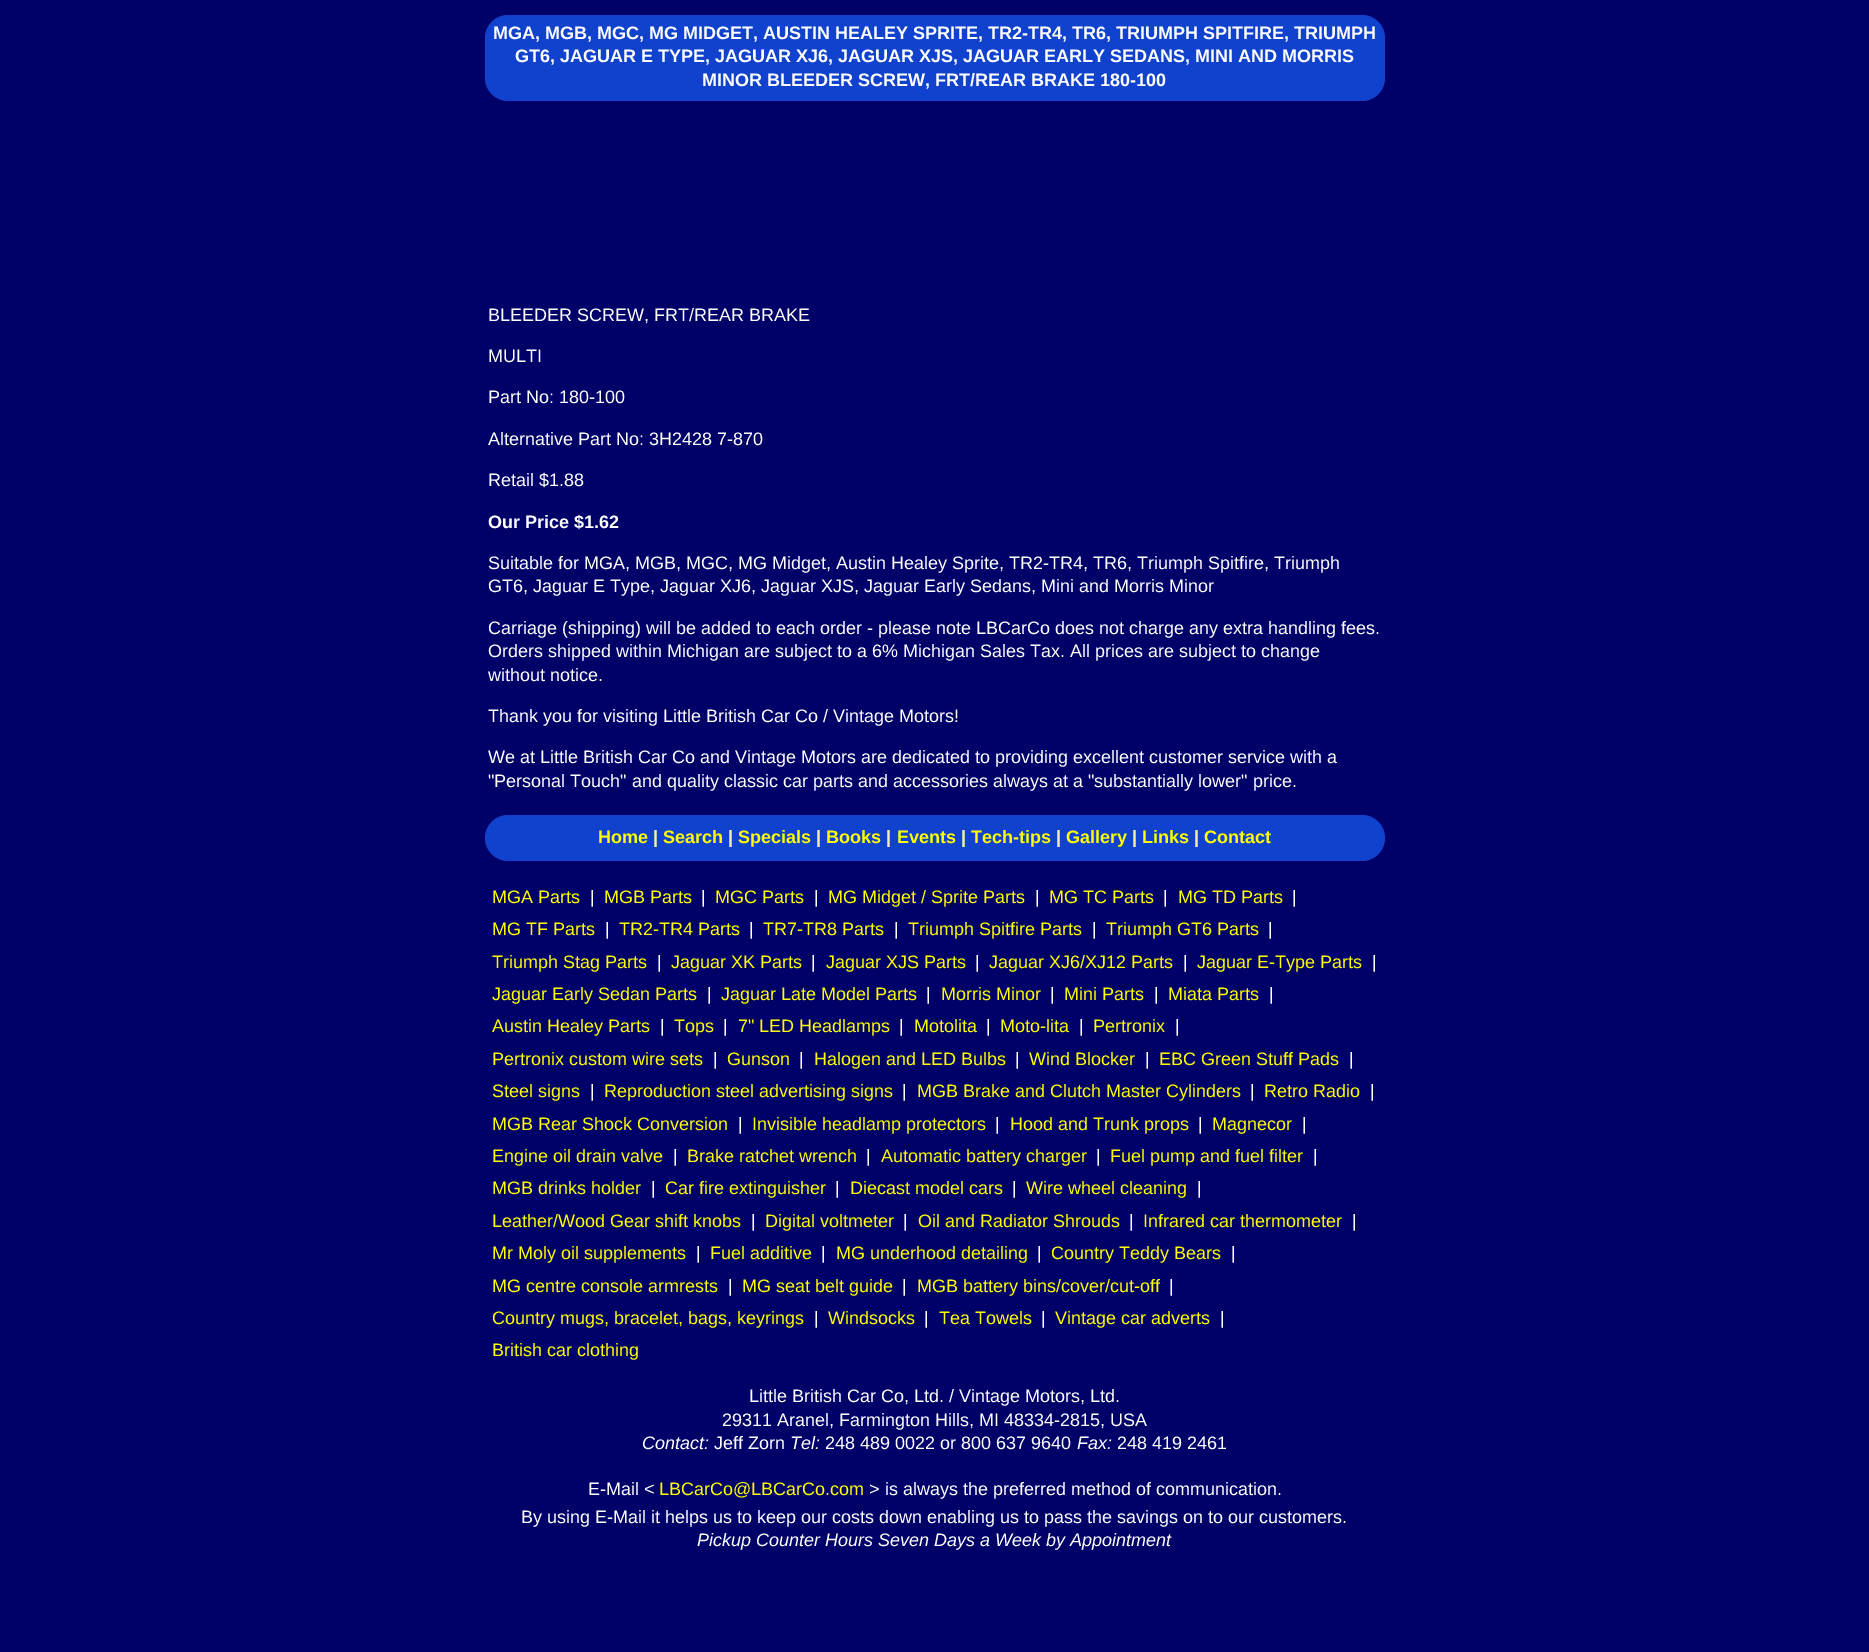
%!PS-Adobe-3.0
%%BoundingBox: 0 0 1869 1652
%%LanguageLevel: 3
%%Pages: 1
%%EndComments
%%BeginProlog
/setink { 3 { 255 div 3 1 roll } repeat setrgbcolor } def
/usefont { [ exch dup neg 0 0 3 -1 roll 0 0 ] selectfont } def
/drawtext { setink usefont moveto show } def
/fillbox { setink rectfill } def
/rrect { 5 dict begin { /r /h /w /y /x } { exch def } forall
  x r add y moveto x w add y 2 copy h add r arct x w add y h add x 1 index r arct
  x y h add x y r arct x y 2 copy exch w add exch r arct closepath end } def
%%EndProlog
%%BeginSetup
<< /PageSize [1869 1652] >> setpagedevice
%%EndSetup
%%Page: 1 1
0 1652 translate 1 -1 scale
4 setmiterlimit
0 0 1869 1652 0 0 105 fillbox
17 66 205 setink
485 15 900 86 23 rrect fill
(MGA, MGB, MGC, MG MIDGET, AUSTIN HEALEY SPRITE, TR2-TR4, TR6, TRIUMPH SPITFIRE, TRIUMPH) 493 39 /LiberationSans-Bold 18 255 255 255 drawtext
(GT6, JAGUAR E TYPE, JAGUAR XJ6, JAGUAR XJS, JAGUAR EARLY SEDANS, MINI AND MORRIS) 515 62 /LiberationSans-Bold 18 255 255 255 drawtext
(MINOR BLEEDER SCREW, FRT/REAR BRAKE 180-100) 702 86 /LiberationSans-Bold 18 255 255 255 drawtext
(BLEEDER SCREW, FRT/REAR BRAKE) 488 321 /LiberationSans-Regular 18 255 255 255 drawtext
(MULTI) 488 362 /LiberationSans-Regular 18 255 255 255 drawtext
(Part No: 180-100) 488 403 /LiberationSans-Regular 18 255 255 255 drawtext
(Alternative Part No: 3H2428 7-870) 488 445 /LiberationSans-Regular 18 255 255 255 drawtext
(Retail $1.88) 488 486 /LiberationSans-Regular 18 255 255 255 drawtext
(Our Price $1.62) 488 528 /LiberationSans-Bold 18 255 255 255 drawtext
(Suitable for MGA, MGB, MGC, MG Midget, Austin Healey Sprite, TR2-TR4, TR6, Triumph Spitfire, Triumph) 488 569 /LiberationSans-Regular 18 255 255 255 drawtext
(GT6, Jaguar E Type, Jaguar XJ6, Jaguar XJS, Jaguar Early Sedans, Mini and Morris Minor) 488 592 /LiberationSans-Regular 18 255 255 255 drawtext
(Carriage \(shipping\) will be added to each order - please note LBCarCo does not charge any extra handling fees.) 488 634 /LiberationSans-Regular 18 255 255 255 drawtext
(Orders shipped within Michigan are subject to a 6% Michigan Sales Tax. All prices are subject to change) 488 657 /LiberationSans-Regular 18 255 255 255 drawtext
(without notice.) 488 681 /LiberationSans-Regular 18 255 255 255 drawtext
(Thank you for visiting Little British Car Co / Vintage Motors!) 488 722 /LiberationSans-Regular 18 255 255 255 drawtext
(We at Little British Car Co and Vintage Motors are dedicated to providing excellent customer service with a) 488 763 /LiberationSans-Regular 18 255 255 255 drawtext
("Personal Touch" and quality classic car parts and accessories always at a "substantially lower" price.) 488 787 /LiberationSans-Regular 18 255 255 255 drawtext
17 66 205 setink
485 815 900 46 23 rrect fill
(Home) 598 843 /LiberationSans-Bold 18 255 255 0 drawtext
(|) 653 843 /LiberationSans-Bold 18 241 240 169 drawtext
(Search) 663 843 /LiberationSans-Bold 18 255 255 0 drawtext
(|) 728 843 /LiberationSans-Bold 18 241 240 169 drawtext
(Specials) 738 843 /LiberationSans-Bold 18 255 255 0 drawtext
(|) 816 843 /LiberationSans-Bold 18 241 240 169 drawtext
(Books) 826 843 /LiberationSans-Bold 18 255 255 0 drawtext
(|) 886 843 /LiberationSans-Bold 18 241 240 169 drawtext
(Events) 897 843 /LiberationSans-Bold 18 255 255 0 drawtext
(|) 961 843 /LiberationSans-Bold 18 241 240 169 drawtext
(Tech-tips) 971 843 /LiberationSans-Bold 18 255 255 0 drawtext
(|) 1056 843 /LiberationSans-Bold 18 241 240 169 drawtext
(Gallery) 1066 843 /LiberationSans-Bold 18 255 255 0 drawtext
(|) 1132 843 /LiberationSans-Bold 18 241 240 169 drawtext
(Links) 1142 843 /LiberationSans-Bold 18 255 255 0 drawtext
(|) 1194 843 /LiberationSans-Bold 18 241 240 169 drawtext
(Contact) 1204 843 /LiberationSans-Bold 18 255 255 0 drawtext
(MGA Parts) 492 903 /LiberationSans-Regular 18 255 255 0 drawtext
(|) 590 903 /LiberationSans-Regular 18 255 255 255 drawtext
(MGB Parts) 604 903 /LiberationSans-Regular 18 255 255 0 drawtext
(|) 701 903 /LiberationSans-Regular 18 255 255 255 drawtext
(MGC Parts) 715 903 /LiberationSans-Regular 18 255 255 0 drawtext
(|) 814 903 /LiberationSans-Regular 18 255 255 255 drawtext
(MG Midget / Sprite Parts) 828 903 /LiberationSans-Regular 18 255 255 0 drawtext
(|) 1035 903 /LiberationSans-Regular 18 255 255 255 drawtext
(MG TC Parts) 1049 903 /LiberationSans-Regular 18 255 255 0 drawtext
(|) 1163 903 /LiberationSans-Regular 18 255 255 255 drawtext
(MG TD Parts) 1178 903 /LiberationSans-Regular 18 255 255 0 drawtext
(|) 1292 903 /LiberationSans-Regular 18 255 255 255 drawtext
(MG TF Parts) 492 935 /LiberationSans-Regular 18 255 255 0 drawtext
(|) 605 935 /LiberationSans-Regular 18 255 255 255 drawtext
(TR2-TR4 Parts) 619 935 /LiberationSans-Regular 18 255 255 0 drawtext
(|) 749 935 /LiberationSans-Regular 18 255 255 255 drawtext
(TR7-TR8 Parts) 763 935 /LiberationSans-Regular 18 255 255 0 drawtext
(|) 894 935 /LiberationSans-Regular 18 255 255 255 drawtext
(Triumph Spitfire Parts) 908 935 /LiberationSans-Regular 18 255 255 0 drawtext
(|) 1092 935 /LiberationSans-Regular 18 255 255 255 drawtext
(Triumph GT6 Parts) 1106 935 /LiberationSans-Regular 18 255 255 0 drawtext
(|) 1268 935 /LiberationSans-Regular 18 255 255 255 drawtext
(Triumph Stag Parts) 492 968 /LiberationSans-Regular 18 255 255 0 drawtext
(|) 657 968 /LiberationSans-Regular 18 255 255 255 drawtext
(Jaguar XK Parts) 671 968 /LiberationSans-Regular 18 255 255 0 drawtext
(|) 811 968 /LiberationSans-Regular 18 255 255 255 drawtext
(Jaguar XJS Parts) 826 968 /LiberationSans-Regular 18 255 255 0 drawtext
(|) 975 968 /LiberationSans-Regular 18 255 255 255 drawtext
(Jaguar XJ6/XJ12 Parts) 989 968 /LiberationSans-Regular 18 255 255 0 drawtext
(|) 1183 968 /LiberationSans-Regular 18 255 255 255 drawtext
(Jaguar E-Type Parts) 1197 968 /LiberationSans-Regular 18 255 255 0 drawtext
(|) 1372 968 /LiberationSans-Regular 18 255 255 255 drawtext
(Jaguar Early Sedan Parts) 492 1000 /LiberationSans-Regular 18 255 255 0 drawtext
(|) 707 1000 /LiberationSans-Regular 18 255 255 255 drawtext
(Jaguar Late Model Parts) 721 1000 /LiberationSans-Regular 18 255 255 0 drawtext
(|) 926 1000 /LiberationSans-Regular 18 255 255 255 drawtext
(Morris Minor) 941 1000 /LiberationSans-Regular 18 255 255 0 drawtext
(|) 1050 1000 /LiberationSans-Regular 18 255 255 255 drawtext
(Mini Parts) 1064 1000 /LiberationSans-Regular 18 255 255 0 drawtext
(|) 1154 1000 /LiberationSans-Regular 18 255 255 255 drawtext
(Miata Parts) 1168 1000 /LiberationSans-Regular 18 255 255 0 drawtext
(|) 1269 1000 /LiberationSans-Regular 18 255 255 255 drawtext
(Austin Healey Parts) 492 1032 /LiberationSans-Regular 18 255 255 0 drawtext
(|) 660 1032 /LiberationSans-Regular 18 255 255 255 drawtext
(Tops) 674 1032 /LiberationSans-Regular 18 255 255 0 drawtext
(|) 723 1032 /LiberationSans-Regular 18 255 255 255 drawtext
(7" LED Headlamps) 738 1032 /LiberationSans-Regular 18 255 255 0 drawtext
(|) 899 1032 /LiberationSans-Regular 18 255 255 255 drawtext
(Motolita) 914 1032 /LiberationSans-Regular 18 255 255 0 drawtext
(|) 986 1032 /LiberationSans-Regular 18 255 255 255 drawtext
(Moto-lita) 1000 1032 /LiberationSans-Regular 18 255 255 0 drawtext
(|) 1079 1032 /LiberationSans-Regular 18 255 255 255 drawtext
(Pertronix) 1093 1032 /LiberationSans-Regular 18 255 255 0 drawtext
(|) 1175 1032 /LiberationSans-Regular 18 255 255 255 drawtext
(Pertronix custom wire sets) 492 1065 /LiberationSans-Regular 18 255 255 0 drawtext
(|) 713 1065 /LiberationSans-Regular 18 255 255 255 drawtext
(Gunson) 727 1065 /LiberationSans-Regular 18 255 255 0 drawtext
(|) 799 1065 /LiberationSans-Regular 18 255 255 255 drawtext
(Halogen and LED Bulbs) 814 1065 /LiberationSans-Regular 18 255 255 0 drawtext
(|) 1015 1065 /LiberationSans-Regular 18 255 255 255 drawtext
(Wind Blocker) 1029 1065 /LiberationSans-Regular 18 255 255 0 drawtext
(|) 1145 1065 /LiberationSans-Regular 18 255 255 255 drawtext
(EBC Green Stuff Pads) 1159 1065 /LiberationSans-Regular 18 255 255 0 drawtext
(|) 1349 1065 /LiberationSans-Regular 18 255 255 255 drawtext
(Steel signs) 492 1097 /LiberationSans-Regular 18 255 255 0 drawtext
(|) 590 1097 /LiberationSans-Regular 18 255 255 255 drawtext
(Reproduction steel advertising signs) 604 1097 /LiberationSans-Regular 18 255 255 0 drawtext
(|) 902 1097 /LiberationSans-Regular 18 255 255 255 drawtext
(MGB Brake and Clutch Master Cylinders) 917 1097 /LiberationSans-Regular 18 255 255 0 drawtext
(|) 1250 1097 /LiberationSans-Regular 18 255 255 255 drawtext
(Retro Radio) 1264 1097 /LiberationSans-Regular 18 255 255 0 drawtext
(|) 1370 1097 /LiberationSans-Regular 18 255 255 255 drawtext
(MGB Rear Shock Conversion) 492 1130 /LiberationSans-Regular 18 255 255 0 drawtext
(|) 738 1130 /LiberationSans-Regular 18 255 255 255 drawtext
(Invisible headlamp protectors) 752 1130 /LiberationSans-Regular 18 255 255 0 drawtext
(|) 995 1130 /LiberationSans-Regular 18 255 255 255 drawtext
(Hood and Trunk props) 1010 1130 /LiberationSans-Regular 18 255 255 0 drawtext
(|) 1198 1130 /LiberationSans-Regular 18 255 255 255 drawtext
(Magnecor) 1212 1130 /LiberationSans-Regular 18 255 255 0 drawtext
(|) 1302 1130 /LiberationSans-Regular 18 255 255 255 drawtext
(Engine oil drain valve) 492 1162 /LiberationSans-Regular 18 255 255 0 drawtext
(|) 673 1162 /LiberationSans-Regular 18 255 255 255 drawtext
(Brake ratchet wrench) 687 1162 /LiberationSans-Regular 18 255 255 0 drawtext
(|) 866 1162 /LiberationSans-Regular 18 255 255 255 drawtext
(Automatic battery charger) 881 1162 /LiberationSans-Regular 18 255 255 0 drawtext
(|) 1096 1162 /LiberationSans-Regular 18 255 255 255 drawtext
(Fuel pump and fuel filter) 1110 1162 /LiberationSans-Regular 18 255 255 0 drawtext
(|) 1313 1162 /LiberationSans-Regular 18 255 255 255 drawtext
(MGB drinks holder) 492 1194 /LiberationSans-Regular 18 255 255 0 drawtext
(|) 651 1194 /LiberationSans-Regular 18 255 255 255 drawtext
(Car fire extinguisher) 665 1194 /LiberationSans-Regular 18 255 255 0 drawtext
(|) 835 1194 /LiberationSans-Regular 18 255 255 255 drawtext
(Diecast model cars) 850 1194 /LiberationSans-Regular 18 255 255 0 drawtext
(|) 1012 1194 /LiberationSans-Regular 18 255 255 255 drawtext
(Wire wheel cleaning) 1026 1194 /LiberationSans-Regular 18 255 255 0 drawtext
(|) 1197 1194 /LiberationSans-Regular 18 255 255 255 drawtext
(Leather/Wood Gear shift knobs) 492 1227 /LiberationSans-Regular 18 255 255 0 drawtext
(|) 751 1227 /LiberationSans-Regular 18 255 255 255 drawtext
(Digital voltmeter) 765 1227 /LiberationSans-Regular 18 255 255 0 drawtext
(|) 903 1227 /LiberationSans-Regular 18 255 255 255 drawtext
(Oil and Radiator Shrouds) 918 1227 /LiberationSans-Regular 18 255 255 0 drawtext
(|) 1129 1227 /LiberationSans-Regular 18 255 255 255 drawtext
(Infrared car thermometer) 1143 1227 /LiberationSans-Regular 18 255 255 0 drawtext
(|) 1352 1227 /LiberationSans-Regular 18 255 255 255 drawtext
(Mr Moly oil supplements) 492 1259 /LiberationSans-Regular 18 255 255 0 drawtext
(|) 696 1259 /LiberationSans-Regular 18 255 255 255 drawtext
(Fuel additive) 710 1259 /LiberationSans-Regular 18 255 255 0 drawtext
(|) 821 1259 /LiberationSans-Regular 18 255 255 255 drawtext
(MG underhood detailing) 836 1259 /LiberationSans-Regular 18 255 255 0 drawtext
(|) 1037 1259 /LiberationSans-Regular 18 255 255 255 drawtext
(Country Teddy Bears) 1051 1259 /LiberationSans-Regular 18 255 255 0 drawtext
(|) 1231 1259 /LiberationSans-Regular 18 255 255 255 drawtext
(MG centre console armrests) 492 1292 /LiberationSans-Regular 18 255 255 0 drawtext
(|) 728 1292 /LiberationSans-Regular 18 255 255 255 drawtext
(MG seat belt guide) 742 1292 /LiberationSans-Regular 18 255 255 0 drawtext
(|) 902 1292 /LiberationSans-Regular 18 255 255 255 drawtext
(MGB battery bins/cover/cut-off) 917 1292 /LiberationSans-Regular 18 255 255 0 drawtext
(|) 1169 1292 /LiberationSans-Regular 18 255 255 255 drawtext
(Country mugs, bracelet, bags, keyrings) 492 1324 /LiberationSans-Regular 18 255 255 0 drawtext
(|) 814 1324 /LiberationSans-Regular 18 255 255 255 drawtext
(Windsocks) 828 1324 /LiberationSans-Regular 18 255 255 0 drawtext
(|) 924 1324 /LiberationSans-Regular 18 255 255 255 drawtext
(Tea Towels) 939 1324 /LiberationSans-Regular 18 255 255 0 drawtext
(|) 1041 1324 /LiberationSans-Regular 18 255 255 255 drawtext
(Vintage car adverts) 1055 1324 /LiberationSans-Regular 18 255 255 0 drawtext
(|) 1220 1324 /LiberationSans-Regular 18 255 255 255 drawtext
(British car clothing) 492 1356 /LiberationSans-Regular 18 255 255 0 drawtext
(Little British Car Co, Ltd. / Vintage Motors, Ltd.) 749 1402 /LiberationSans-Regular 18 255 255 255 drawtext
(29311 Aranel, Farmington Hills, MI 48334-2815, USA) 722 1426 /LiberationSans-Regular 18 255 255 255 drawtext
(Contact:) 642 1449 /LiberationSans-Italic 18 255 255 255 drawtext
(Jeff Zorn) 714 1449 /LiberationSans-Regular 18 255 255 255 drawtext
(Tel:) 790 1449 /LiberationSans-Italic 18 255 255 255 drawtext
(248 489 0022 or 800 637 9640) 825 1449 /LiberationSans-Regular 18 255 255 255 drawtext
(Fax:) 1077 1449 /LiberationSans-Italic 18 255 255 255 drawtext
(248 419 2461) 1117 1449 /LiberationSans-Regular 18 255 255 255 drawtext
(E-Mail <) 588 1495 /LiberationSans-Regular 18 255 255 255 drawtext
(LBCarCo@LBCarCo.com) 659 1495 /LiberationSans-Regular 18 255 255 0 drawtext
(> is always the preferred method of communication.) 869 1495 /LiberationSans-Regular 18 255 255 255 drawtext
(By using E-Mail it helps us to keep our costs down enabling us to pass the savings on to our customers.) 521 1523 /LiberationSans-Regular 18 255 255 255 drawtext
(Pickup Counter Hours Seven Days a Week by Appointment) 697 1546 /LiberationSans-Italic 18 255 255 255 drawtext
showpage
%%EOF
